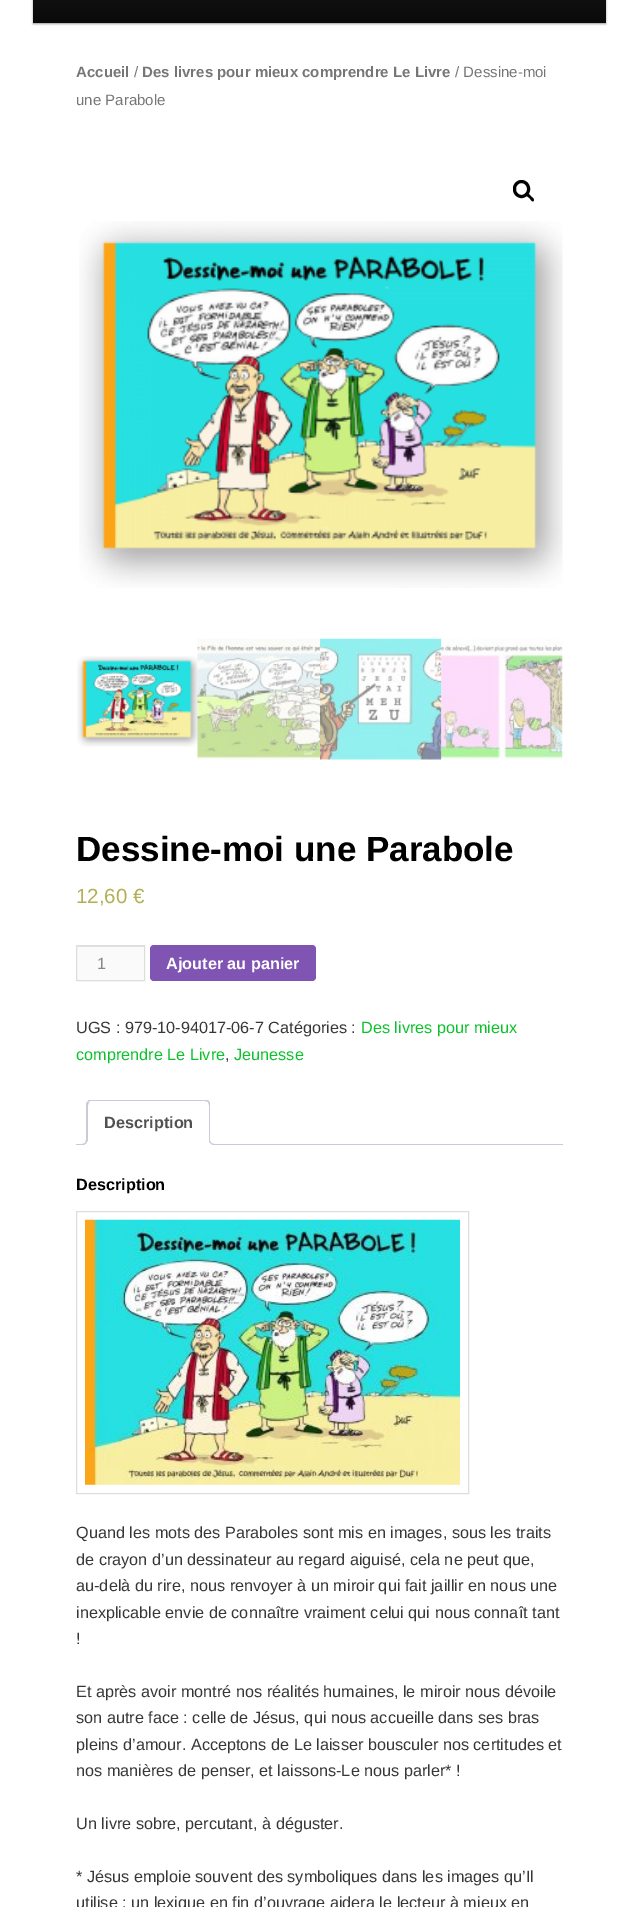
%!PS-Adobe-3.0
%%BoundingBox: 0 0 638 1907
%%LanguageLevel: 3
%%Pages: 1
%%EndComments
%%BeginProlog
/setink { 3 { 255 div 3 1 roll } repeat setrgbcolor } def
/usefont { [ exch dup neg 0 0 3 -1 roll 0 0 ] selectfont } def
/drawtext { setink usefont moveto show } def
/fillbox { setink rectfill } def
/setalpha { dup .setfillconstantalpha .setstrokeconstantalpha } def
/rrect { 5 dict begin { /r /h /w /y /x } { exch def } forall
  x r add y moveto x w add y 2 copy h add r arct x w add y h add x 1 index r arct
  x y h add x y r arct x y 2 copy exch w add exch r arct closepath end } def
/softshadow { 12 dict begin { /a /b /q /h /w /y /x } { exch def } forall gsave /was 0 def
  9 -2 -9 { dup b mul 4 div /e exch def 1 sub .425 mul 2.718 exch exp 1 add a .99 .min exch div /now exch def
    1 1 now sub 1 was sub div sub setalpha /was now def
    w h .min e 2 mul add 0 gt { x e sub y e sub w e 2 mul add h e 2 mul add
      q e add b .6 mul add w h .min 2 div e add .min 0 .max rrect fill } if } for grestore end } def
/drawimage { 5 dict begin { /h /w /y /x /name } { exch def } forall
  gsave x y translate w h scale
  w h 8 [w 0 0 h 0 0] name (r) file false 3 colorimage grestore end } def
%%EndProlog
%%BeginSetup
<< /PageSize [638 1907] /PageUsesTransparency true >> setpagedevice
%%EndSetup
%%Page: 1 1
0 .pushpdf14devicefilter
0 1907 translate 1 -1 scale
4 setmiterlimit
0 0 638 1907 255 255 255 fillbox
0 0 0 setink
33 -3 573 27 0 1 0.4 softshadow
gsave 33 0 moveto 606 0 lineto 606 23 lineto 33 23 lineto closepath clip newpath
<< /ShadingType 2 /ColorSpace /DeviceRGB /Coords [319 -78 319 23] /Extend [true true] /Function << /FunctionType 2 /Domain [0 1] /C0 [0.145 0.145 0.145] /C1 [0.039 0.039 0.039] /N 1 >> >> shfill grestore
(Accueil) 76 77 /LiberationSans-Bold 15 118 118 118 drawtext
(/) 134 77 /LiberationSans-Regular 15 118 118 118 drawtext
(Des livres pour mieux comprendre Le Livre) 142 77 /LiberationSans-Bold 15 118 118 118 drawtext
(/ Dessine-moi) 455 77 /LiberationSans-Regular 15 118 118 118 drawtext
(une Parabole) 76 105 /LiberationSans-Regular 15 118 118 118 drawtext
0 0 0 setink
3 setlinewidth
514.5 181.5 14 15 7 rrect stroke
526.5 194 moveto 528 192.5 530.5 195.5 531 196.5 curveto 532 197 535 199.5 533.5 201 curveto 532.5 202.5 530 199 529.5 198 curveto 528.5 197.5 525 195 526.5 194 curveto closepath fill
(assets/img1.rgb) 79 221 484 367 drawimage
(assets/img2.rgb) 77 656 121 91 drawimage
(assets/img3.rgb) 197 638 123 122 drawimage
(assets/img4.rgb) 320 638 122 122 drawimage
(assets/img5.rgb) 441 639 122 121 drawimage
(Dessine-moi une Parabole) 76 861 /LiberationSans-Bold 35 0 0 0 drawtext
(12,60 €) 76 903 /LiberationSans-Regular 20.5 179 175 84 drawtext
77 946 67 34 250 250 250 fillbox
78 946 66 1 225 225 225 fillbox
221 221 221 setink
1 setlinewidth
76.5 945.5 68 35 rectstroke
(1) 97 969 /LiberationSans-Regular 16.25 136 136 136 drawtext
127 84 179 setink
150 945 166 36 4 rrect fill
(Ajouter au panier) 166 969 /LiberationSans-Bold 16.25 255 255 255 drawtext
(UGS : 979-10-94017-06-7 Catégories :) 76 1033 /LiberationSans-Regular 16.25 55 55 55 drawtext
(Des livres pour mieux) 361 1033 /LiberationSans-Regular 16.25 13 193 44 drawtext
(comprendre Le Livre) 76 1060 /LiberationSans-Regular 16.25 13 193 44 drawtext
(,) 225 1060 /LiberationSans-Regular 16.25 55 55 55 drawtext
(Jeunesse) 234 1060 /LiberationSans-Regular 16.25 13 193 44 drawtext
76 1144 487 1 207 200 216 fillbox
255 255 255 setink
91 1100 moveto 205 1100 lineto 208 1100 210 1102 210 1105 curveto 210 1145 lineto 86 1145 lineto 86 1105 lineto 86 1102 88 1100 91 1100 curveto closepath fill
207 200 216 setink
91 1100 moveto 90 1100 88 1100 88 1101 curveto 89 1102 lineto 90 1101 lineto 205 1101 lineto 208 1102 lineto 209 1101 lineto 208 1100 206 1100 205 1100 curveto closepath fill
210 1145 moveto 210 1105 lineto 210 1104 210 1102 209 1101 curveto 208 1102 lineto 208 1103 209 1104 209 1105 curveto 209 1144 lineto closepath fill
255 255 255 setink
210 1145 moveto 209 1144 lineto 88 1144 lineto 88 1143 lineto 86 1145 lineto closepath fill
207 200 216 setink
86 1145 moveto 86 1103 lineto 88 1101 lineto 89 1102 lineto 88 1105 lineto 88 1143 lineto closepath fill
(Description) 104 1128 /LiberationSans-Bold 16.25 81 81 81 drawtext
gsave
76 1100 487 45 rectclip
255 255 255 setink
84 1145 moveto 84 1148 lineto 89 1148 90 1145.5 90 1141 curveto 87.5 1141 lineto 87 1143 85.5 1144 84 1145 curveto closepath fill
grestore
207 200 216 setink
81 1139 moveto 87.5 1139 lineto 87.5 1143 85.5 1145 81 1145 curveto closepath 81 1139 moveto 86 1139 lineto 86 1142.5 85 1144 81 1144 curveto closepath eofill
gsave
76 1100 487 45 rectclip
255 255 255 setink
206 1141 moveto 206 1146.5 207.5 1148 213 1148 curveto 213 1145 lineto 211 1144.5 209.5 1143 209 1141 curveto closepath fill
grestore
209 1139 moveto 215 1139 lineto 215 1145 lineto 212 1145 209 1143.5 209 1140 curveto closepath 210 1139 moveto 215 1139 lineto 215 1144 lineto 212.5 1144 210 1143 210 1140 curveto closepath eofill
(Description) 76 1190 /LiberationSans-Bold 16.25 0 0 0 drawtext
221 221 221 setink
76.5 1211.5 392 282 rectstroke
(assets/img6.rgb) 85 1219 375 266 drawimage
(Quand les mots des Paraboles sont mis en images, sous les traits) 76 1538 /LiberationSans-Regular 16.25 55 55 55 drawtext
(de crayon d’un dessinateur au regard aiguisé, cela ne peut que,) 76 1565 /LiberationSans-Regular 16.25 55 55 55 drawtext
(au-delà du rire, nous renvoyer à un miroir qui fait jaillir en nous une) 76 1591 /LiberationSans-Regular 16.25 55 55 55 drawtext
(inexplicable envie de connaître vraiment celui qui nous connaît tant) 76 1618 /LiberationSans-Regular 16.25 55 55 55 drawtext
(!) 76 1644 /LiberationSans-Regular 16.25 55 55 55 drawtext
(Et après avoir montré nos réalités humaines, le miroir nous dévoile) 76 1697 /LiberationSans-Regular 16.25 55 55 55 drawtext
(son autre face : celle de Jésus, qui nous accueille dans ses bras) 76 1723 /LiberationSans-Regular 16.25 55 55 55 drawtext
(pleins d’amour. Acceptons de Le laisser bousculer nos certitudes et) 76 1750 /LiberationSans-Regular 16.25 55 55 55 drawtext
(nos manières de penser, et laissons-Le nous parler* !) 76 1776 /LiberationSans-Regular 16.25 55 55 55 drawtext
(Un livre sobre, percutant, à déguster.) 76 1829 /LiberationSans-Regular 16.25 55 55 55 drawtext
(* Jésus emploie souvent des symboliques dans les images qu’Il) 76 1882 /LiberationSans-Regular 16.25 55 55 55 drawtext
(utilise : un lexique en fin d’ouvrage aidera le lecteur à mieux en) 76 1908 /LiberationSans-Regular 16.25 55 55 55 drawtext
.poppdf14devicefilter showpage
%%EOF
